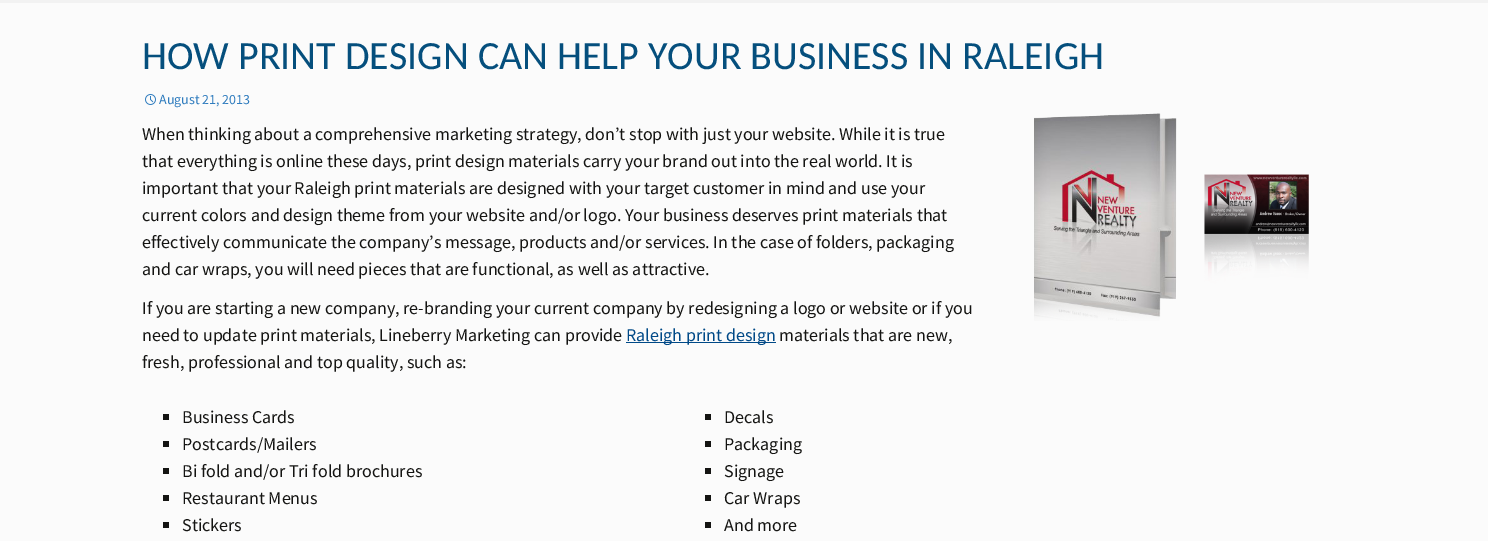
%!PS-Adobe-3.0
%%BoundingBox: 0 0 1488 541
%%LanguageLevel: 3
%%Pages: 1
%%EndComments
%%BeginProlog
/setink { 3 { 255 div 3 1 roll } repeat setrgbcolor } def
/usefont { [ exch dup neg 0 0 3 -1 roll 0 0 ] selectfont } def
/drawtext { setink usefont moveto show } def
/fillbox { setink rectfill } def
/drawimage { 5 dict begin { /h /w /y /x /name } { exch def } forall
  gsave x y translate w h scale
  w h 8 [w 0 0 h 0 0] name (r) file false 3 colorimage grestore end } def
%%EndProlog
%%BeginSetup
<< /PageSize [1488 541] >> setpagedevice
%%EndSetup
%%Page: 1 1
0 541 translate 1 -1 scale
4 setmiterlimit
0 0 1488 541 242 242 242 fillbox
0 3 1488 538 251 251 251 fillbox
(HOW PRINT DESIGN CAN HELP YOUR BUSINESS IN RALEIGH) 142 69 /Carlito-Regular 40 5 79 125 drawtext
(assets/img1.rgb) 145 94 11 11 drawimage
(August 21, 2013) 159 104 /SourceSansPro-Regular 14 47 124 190 drawtext
(When thinking about a comprehensive marketing strategy, don’t stop with just your website. While it is true) 142 140 /SourceSansPro-Regular 18 20 20 18 drawtext
(assets/img2.rgb) 1034 113 275 208 drawimage
(that everything is online these days, print design materials carry your brand out into the real world. It is) 142 167 /SourceSansPro-Regular 18 20 20 18 drawtext
(important that your Raleigh print materials are designed with your target customer in mind and use your) 142 194 /SourceSansPro-Regular 18 20 20 18 drawtext
(current colors and design theme from your website and/or logo. Your business deserves print materials that) 142 221 /SourceSansPro-Regular 18 20 20 18 drawtext
(effectively communicate the company’s message, products and/or services. In the case of folders, packaging) 142 248 /SourceSansPro-Regular 18 20 20 18 drawtext
(and car wraps, you will need pieces that are functional, as well as attractive.) 142 275 /SourceSansPro-Regular 18 20 20 18 drawtext
(If you are starting a new company, re-branding your current company by redesigning a logo or website or if you) 142 314 /SourceSansPro-Regular 18 20 20 18 drawtext
(need to update print materials, Lineberry Marketing can provide) 142 341 /SourceSansPro-Regular 18 20 20 18 drawtext
626 342 150 1 0 73 135 fillbox
(Raleigh print design) 626 341 /SourceSansPro-Regular 18 0 73 135 drawtext
(materials that are new,) 779 341 /SourceSansPro-Regular 18 20 20 18 drawtext
(fresh, professional and top quality, such as:) 142 368 /SourceSansPro-Regular 18 20 20 18 drawtext
163 414 6 6 20 20 18 fillbox
(Business Cards) 182 423 /SourceSansPro-Regular 18 20 20 18 drawtext
163 441 6 6 20 20 18 fillbox
(Postcards/Mailers) 182 450 /SourceSansPro-Regular 18 20 20 18 drawtext
163 468 6 6 20 20 18 fillbox
(Bi fold and/or Tri fold brochures) 182 477 /SourceSansPro-Regular 18 20 20 18 drawtext
163 495 6 6 20 20 18 fillbox
(Restaurant Menus) 182 504 /SourceSansPro-Regular 18 20 20 18 drawtext
163 522 6 6 20 20 18 fillbox
(Stickers) 182 531 /SourceSansPro-Regular 18 20 20 18 drawtext
705 414 6 6 20 20 18 fillbox
(Decals) 724 423 /SourceSansPro-Regular 18 20 20 18 drawtext
705 441 6 6 20 20 18 fillbox
(Packaging) 724 450 /SourceSansPro-Regular 18 20 20 18 drawtext
705 468 6 6 20 20 18 fillbox
(Signage) 724 477 /SourceSansPro-Regular 18 20 20 18 drawtext
705 495 6 6 20 20 18 fillbox
(Car Wraps) 724 504 /SourceSansPro-Regular 18 20 20 18 drawtext
705 522 6 6 20 20 18 fillbox
(And more) 724 531 /SourceSansPro-Regular 18 20 20 18 drawtext
showpage
%%EOF
